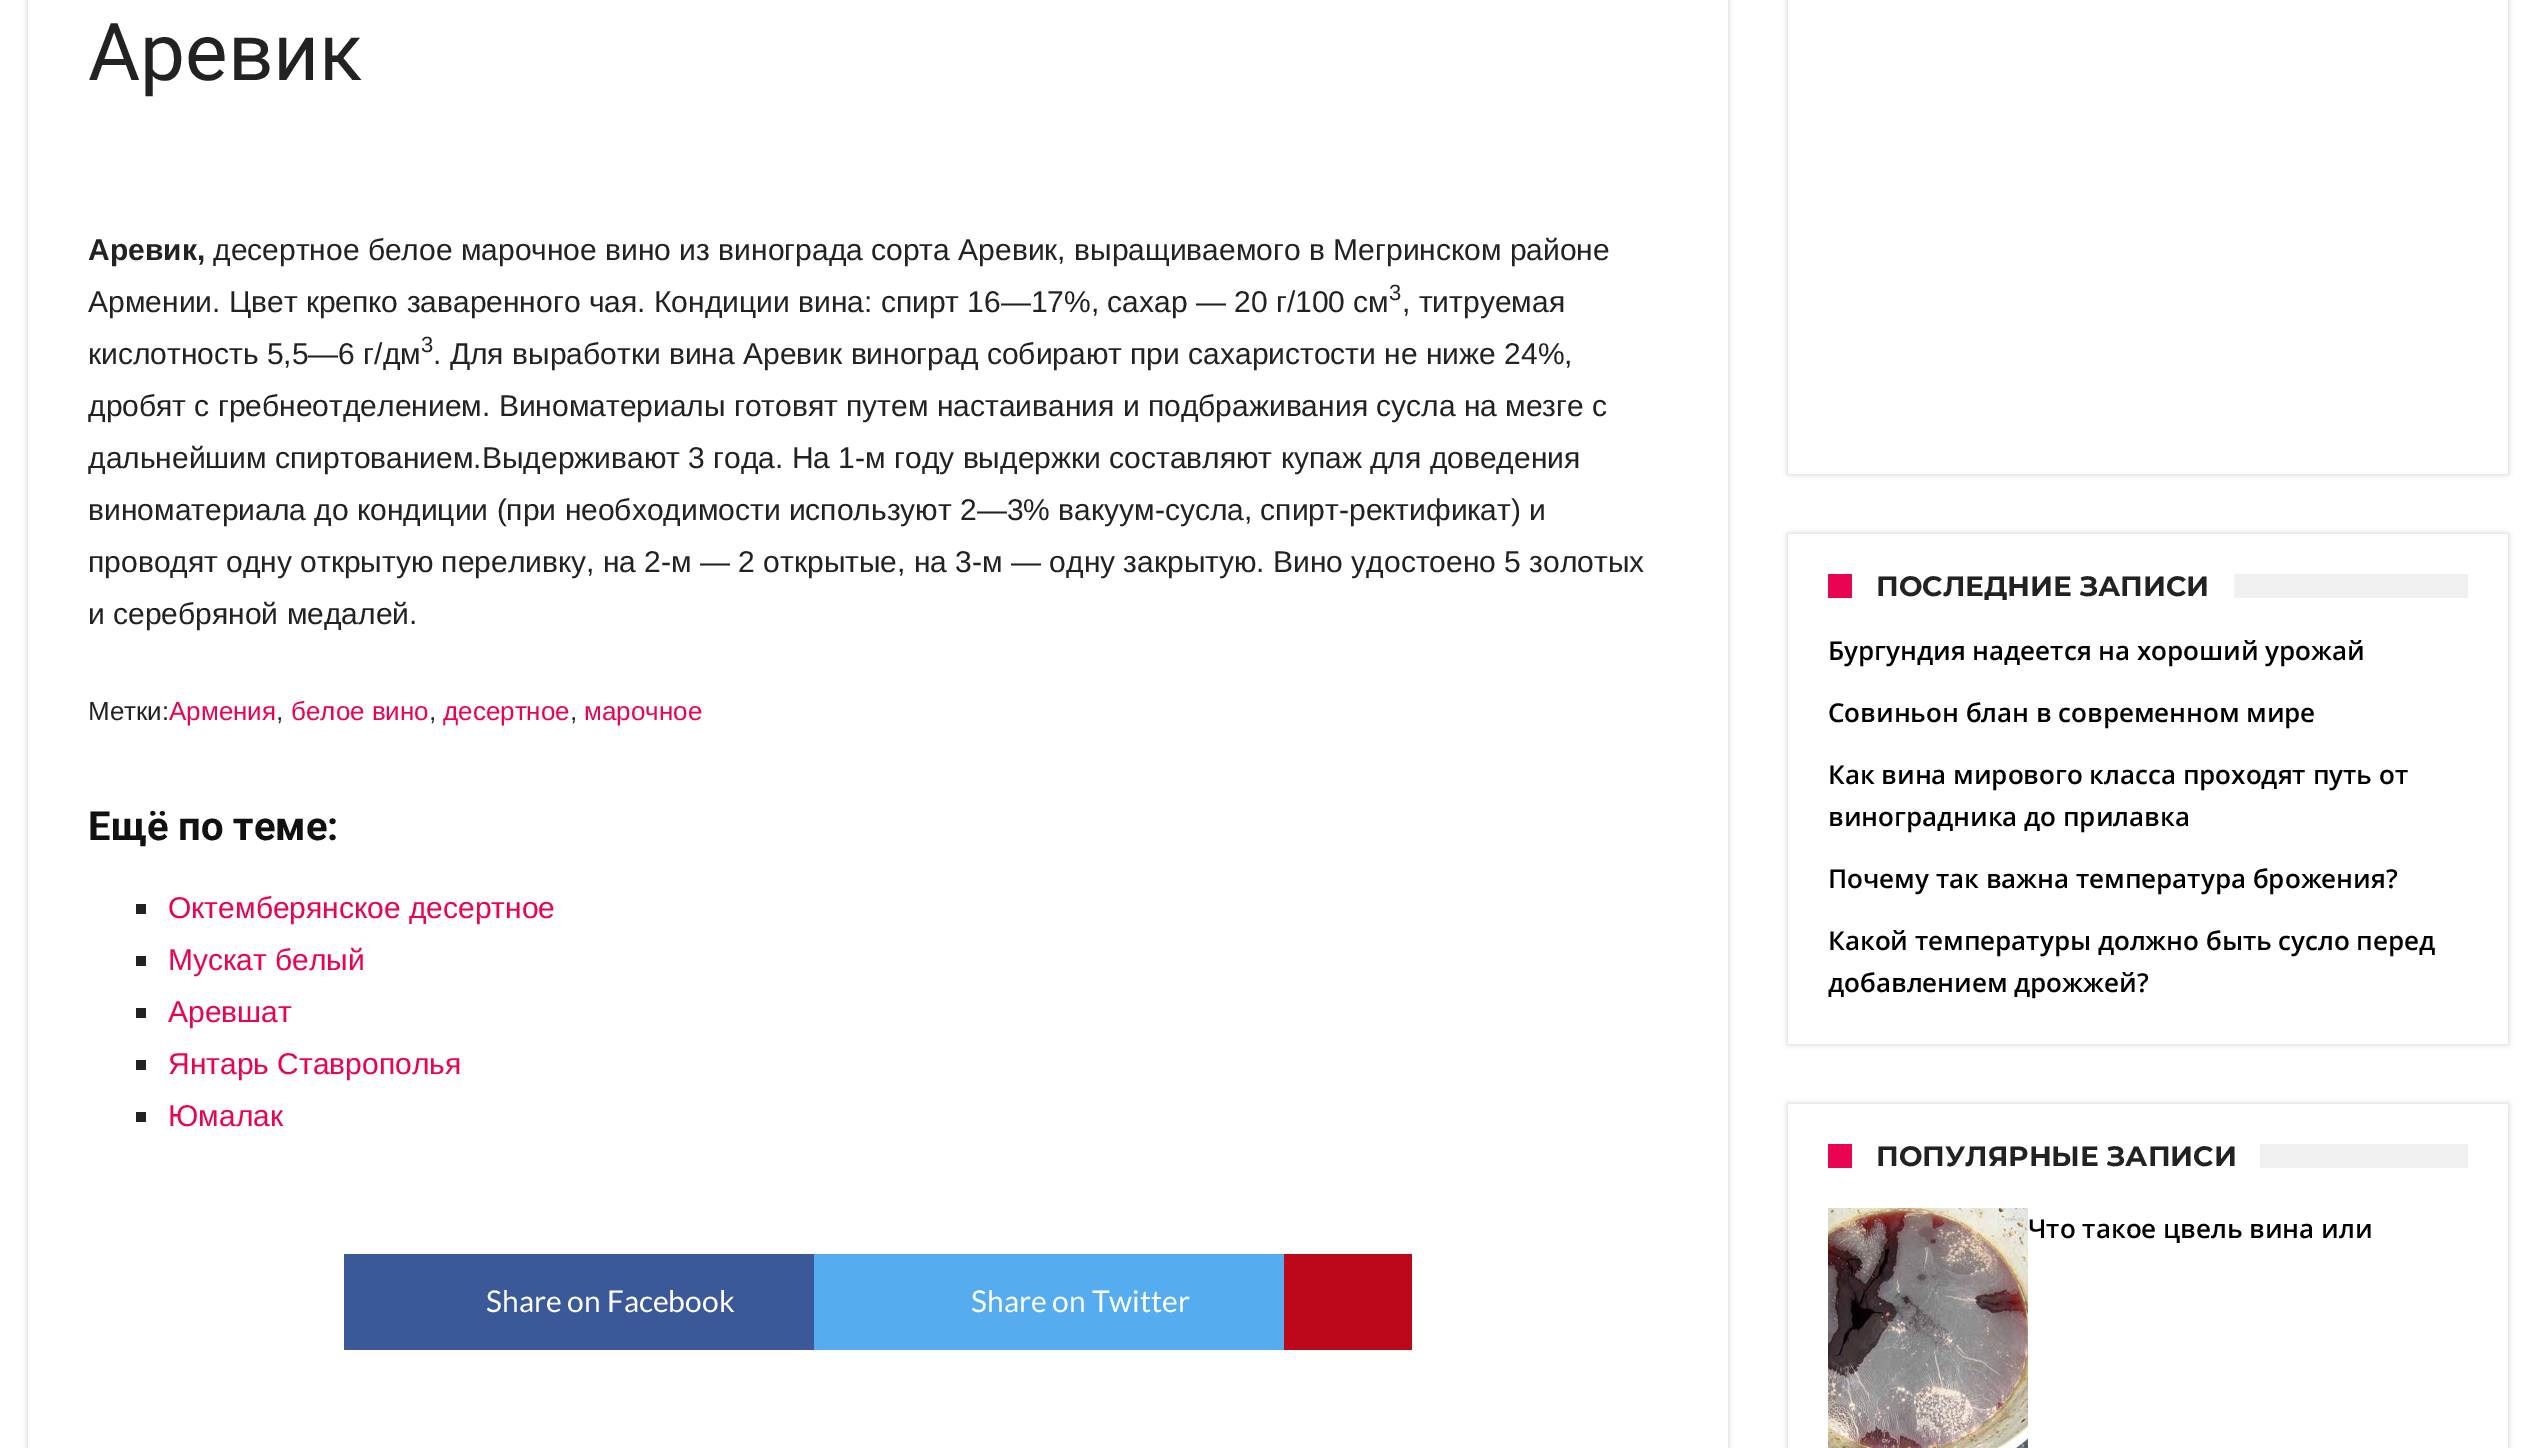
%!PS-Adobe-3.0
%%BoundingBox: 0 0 2536 1448
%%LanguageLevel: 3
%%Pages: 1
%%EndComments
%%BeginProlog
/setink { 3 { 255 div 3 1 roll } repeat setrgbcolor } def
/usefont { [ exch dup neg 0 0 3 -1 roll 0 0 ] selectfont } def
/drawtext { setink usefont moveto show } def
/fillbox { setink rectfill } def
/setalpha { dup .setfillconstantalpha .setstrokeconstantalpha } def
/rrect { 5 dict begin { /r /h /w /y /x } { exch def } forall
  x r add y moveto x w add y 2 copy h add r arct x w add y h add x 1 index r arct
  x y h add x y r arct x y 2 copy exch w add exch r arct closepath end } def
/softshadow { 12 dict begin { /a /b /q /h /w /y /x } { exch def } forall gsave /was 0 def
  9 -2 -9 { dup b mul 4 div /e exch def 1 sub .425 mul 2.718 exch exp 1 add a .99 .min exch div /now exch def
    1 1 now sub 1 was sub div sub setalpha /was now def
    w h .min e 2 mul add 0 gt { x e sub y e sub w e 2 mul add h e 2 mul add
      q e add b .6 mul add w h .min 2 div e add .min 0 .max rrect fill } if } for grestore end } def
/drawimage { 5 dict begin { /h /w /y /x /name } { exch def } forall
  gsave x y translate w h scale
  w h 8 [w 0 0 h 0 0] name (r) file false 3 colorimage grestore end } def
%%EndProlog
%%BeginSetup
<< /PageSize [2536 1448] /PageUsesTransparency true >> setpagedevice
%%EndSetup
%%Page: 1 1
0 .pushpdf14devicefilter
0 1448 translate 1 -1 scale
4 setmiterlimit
0 0 2536 1448 255 255 255 fillbox
gsave
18 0 moveto 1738 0 lineto 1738 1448 lineto 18 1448 lineto closepath 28 -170 moveto 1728 -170 lineto 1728 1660 lineto 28 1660 lineto closepath eoclip newpath
0 0 0 setink
28 -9 1700 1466 0 3 0.21 softshadow
grestore
(Аревик) 88 80 /Roboto-Regular 80 34 34 34 drawtext
(Аревик,) 88 260 /LiberationSans-Bold 30 34 34 34 drawtext
(десертное белое марочное вино из винограда сорта Аревик, выращиваемого в Мегринском районе) 213 260 /LiberationSans-Regular 30 34 34 34 drawtext
(Армении. Цвет крепко заваренного чая. Кондиции вина: спирт 16—17%, сахар — 20 г/100 см) 88 312 /LiberationSans-Regular 30 34 34 34 drawtext
(3) 1389 300 /LiberationSans-Regular 22 34 34 34 drawtext
(, титруемая) 1402 312 /LiberationSans-Regular 30 34 34 34 drawtext
(кислотность 5,5—6 г/дм) 88 364 /LiberationSans-Regular 30 34 34 34 drawtext
(3) 421 352 /LiberationSans-Regular 22 34 34 34 drawtext
(. Для выработки вина Аревик виноград собирают при сахаристости не ниже 24%,) 433 364 /LiberationSans-Regular 30 34 34 34 drawtext
(дробят с гребнеотделением. Виноматериалы готовят путем настаивания и подбраживания сусла на мезге с) 88 416 /LiberationSans-Regular 30 34 34 34 drawtext
(дальнейшим спиртованием.Выдерживают 3 года. На 1-м году выдержки составляют купаж для доведения) 88 468 /LiberationSans-Regular 30 34 34 34 drawtext
(виноматериала до кондиции \(при необходимости используют 2—3% вакуум-сусла, спирт-ректификат\) и) 88 520 /LiberationSans-Regular 30 34 34 34 drawtext
(проводят одну открытую переливку, на 2-м — 2 открытые, на 3-м — одну закрытую. Вино удостоено 5 золотых) 88 572 /LiberationSans-Regular 30 34 34 34 drawtext
(и серебряной медалей.) 88 624 /LiberationSans-Regular 30 34 34 34 drawtext
(Метки:) 88 720 /LiberationSans-Regular 26 34 34 34 drawtext
(Армения) 169 720 /LiberationSans-Regular 26 234 2 83 drawtext
(,) 276 720 /LiberationSans-Regular 26 34 34 34 drawtext
(белое вино) 291 720 /LiberationSans-Regular 26 234 2 83 drawtext
(,) 429 720 /LiberationSans-Regular 26 34 34 34 drawtext
(десертное) 443 720 /LiberationSans-Regular 26 234 2 83 drawtext
(,) 570 720 /LiberationSans-Regular 26 34 34 34 drawtext
(марочное) 584 720 /LiberationSans-Regular 26 234 2 83 drawtext
(Ещё по теме:) 88 840 /Roboto-Bold 40 17 17 17 drawtext
136 904 10 10 34 34 34 fillbox
(Октемберянское десертное) 168 918 /LiberationSans-Regular 30 234 2 83 drawtext
136 956 10 10 34 34 34 fillbox
(Мускат белый) 168 970 /LiberationSans-Regular 30 234 2 83 drawtext
136 1008 10 10 34 34 34 fillbox
(Аревшат) 168 1022 /LiberationSans-Regular 30 234 2 83 drawtext
136 1060 10 10 34 34 34 fillbox
(Янтарь Ставрополья) 168 1074 /LiberationSans-Regular 30 234 2 83 drawtext
136 1112 10 10 34 34 34 fillbox
(Юмалак) 168 1126 /LiberationSans-Regular 30 234 2 83 drawtext
344 1254 470 96 59 89 152 fillbox
(Share on Facebook) 486 1312 /Lato-Regular 30 255 255 255 drawtext
814 1254 470 96 85 172 238 fillbox
(Share on Twitter) 971 1312 /Lato-Regular 30 255 255 255 drawtext
1284 1254 128 96 189 8 28 fillbox
gsave
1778 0 moveto 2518 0 lineto 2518 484 lineto 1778 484 lineto closepath 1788 -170 moveto 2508 -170 lineto 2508 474 lineto 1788 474 lineto closepath eoclip newpath
0 0 0 setink
1788 -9 720 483 0 3 0.21 softshadow
grestore
gsave
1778 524 moveto 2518 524 lineto 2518 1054 lineto 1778 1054 lineto closepath 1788 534 moveto 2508 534 lineto 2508 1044 lineto 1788 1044 lineto closepath eoclip newpath
0 0 0 setink
1788 534 720 510 0 3 0.21 softshadow
grestore
2234 574 234 24 240 240 240 fillbox
1828 574 24 24 234 2 83 fillbox
(ПОСЛЕДНИЕ ЗАПИСИ) 1876 596 /Montserrat-Bold 28 34 34 34 drawtext
(Бургундия надеется на хороший урожай) 1828 660 /OpenSans-SemiBold 26 0 0 0 drawtext
(Совиньон блан в современном мире) 1828 722 /OpenSans-SemiBold 26 0 0 0 drawtext
(Как вина мирового класса проходят путь от) 1828 784 /OpenSans-SemiBold 26 0 0 0 drawtext
(виноградника до прилавка) 1828 826 /OpenSans-SemiBold 26 0 0 0 drawtext
(Почему так важна температура брожения?) 1828 888 /OpenSans-SemiBold 26 0 0 0 drawtext
(Какой температуры должно быть сусло перед) 1828 950 /OpenSans-SemiBold 26 0 0 0 drawtext
(добавлением дрожжей?) 1828 992 /OpenSans-SemiBold 26 0 0 0 drawtext
gsave
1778 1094 moveto 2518 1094 lineto 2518 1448 lineto 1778 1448 lineto closepath 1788 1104 moveto 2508 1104 lineto 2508 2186 lineto 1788 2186 lineto closepath eoclip newpath
1788 1104 720 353 0 3 0.21 softshadow
grestore
2260 1144 208 24 240 240 240 fillbox
1828 1144 24 24 234 2 83 fillbox
(ПОПУЛЯРНЫЕ ЗАПИСИ) 1876 1166 /Montserrat-Bold 28 34 34 34 drawtext
(assets/img1.rgb) 1828 1208 200 240 drawimage
(Что такое цвель вина или) 2028 1238 /OpenSans-SemiBold 26 0 0 0 drawtext
.poppdf14devicefilter showpage
%%EOF
